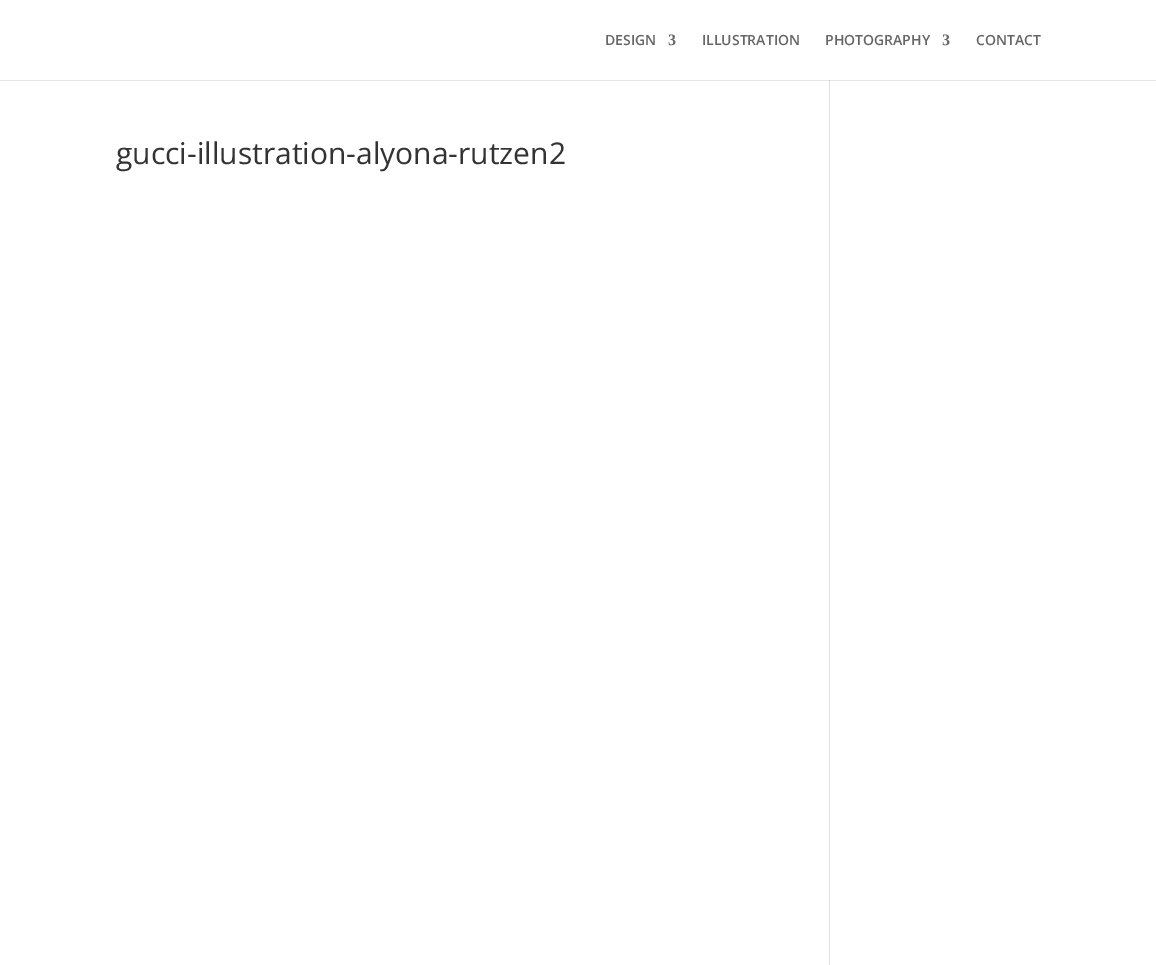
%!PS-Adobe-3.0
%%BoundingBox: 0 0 1156 965
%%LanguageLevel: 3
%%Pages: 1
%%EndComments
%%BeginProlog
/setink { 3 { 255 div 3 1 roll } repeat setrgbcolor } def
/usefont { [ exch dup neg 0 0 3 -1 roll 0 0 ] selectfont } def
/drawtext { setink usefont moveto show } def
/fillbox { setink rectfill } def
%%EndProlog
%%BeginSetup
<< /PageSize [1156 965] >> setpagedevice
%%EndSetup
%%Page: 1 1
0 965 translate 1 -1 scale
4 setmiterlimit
0 0 1156 965 255 255 255 fillbox
0 80 1156 1 230 230 230 fillbox
(DESIGN) 605 45 /OpenSans-SemiBold 14 102 102 102 drawtext
(3) 668 45 /LiberationSerif-Bold 16 102 102 102 drawtext
(ILLUSTRATION) 702 45 /OpenSans-SemiBold 14 102 102 102 drawtext
(PHOTOGRAPHY) 825 45 /OpenSans-SemiBold 14 102 102 102 drawtext
(3) 942 45 /LiberationSerif-Bold 16 102 102 102 drawtext
(CONTACT) 976 45 /OpenSans-SemiBold 14 102 102 102 drawtext
(gucci-illustration-alyona-rutzen2) 116 164 /OpenSans-Regular 30 51 51 51 drawtext
829 80 1 885 226 226 226 fillbox
829 80 1 1 203 203 203 fillbox
showpage
%%EOF
